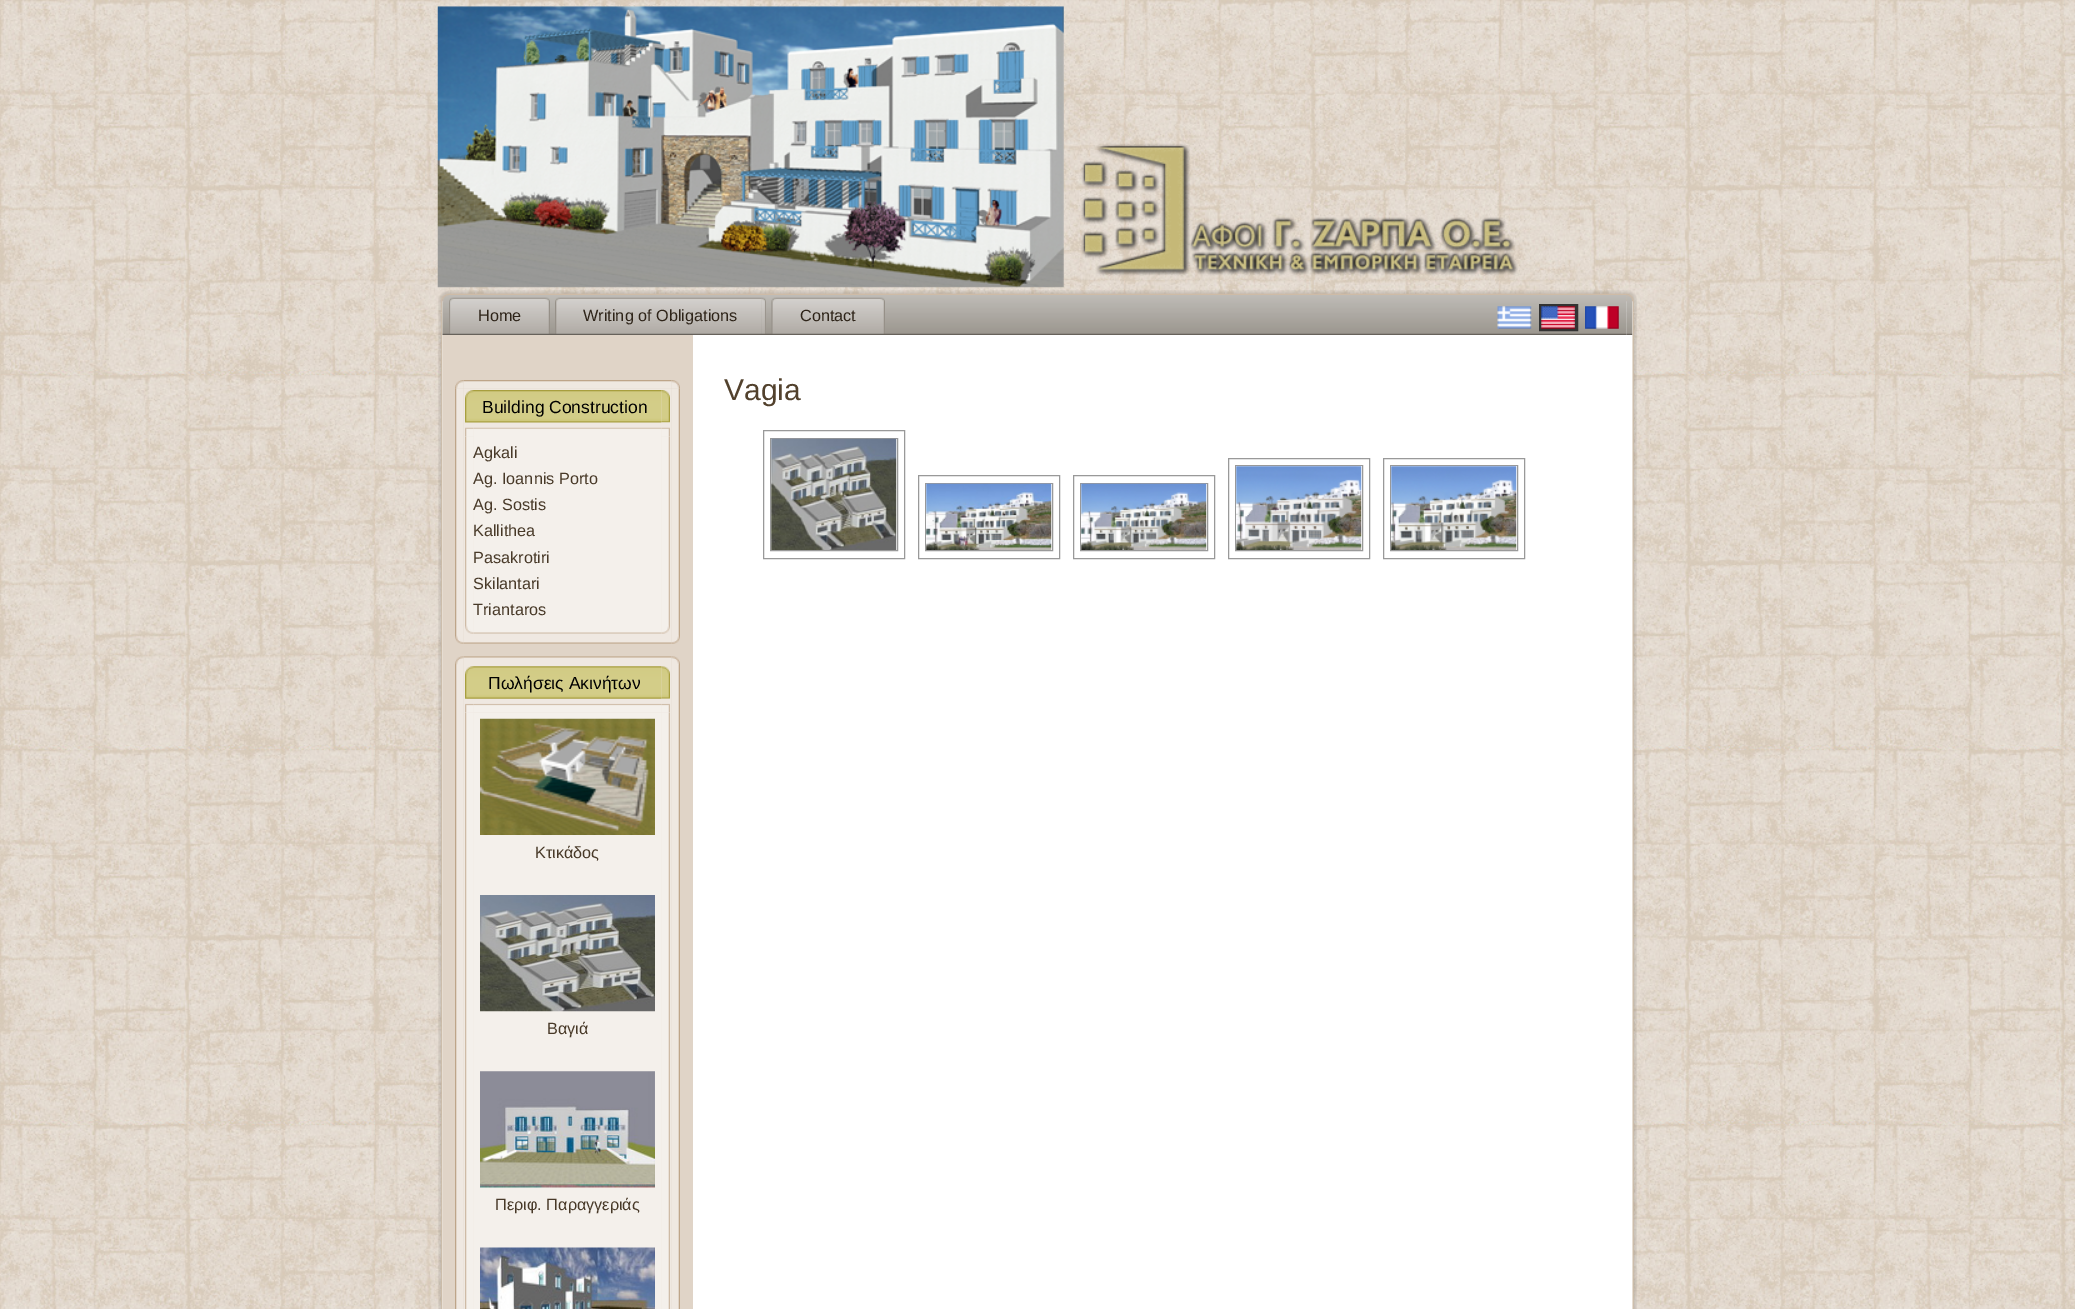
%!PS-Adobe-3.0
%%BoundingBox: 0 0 2075 1309
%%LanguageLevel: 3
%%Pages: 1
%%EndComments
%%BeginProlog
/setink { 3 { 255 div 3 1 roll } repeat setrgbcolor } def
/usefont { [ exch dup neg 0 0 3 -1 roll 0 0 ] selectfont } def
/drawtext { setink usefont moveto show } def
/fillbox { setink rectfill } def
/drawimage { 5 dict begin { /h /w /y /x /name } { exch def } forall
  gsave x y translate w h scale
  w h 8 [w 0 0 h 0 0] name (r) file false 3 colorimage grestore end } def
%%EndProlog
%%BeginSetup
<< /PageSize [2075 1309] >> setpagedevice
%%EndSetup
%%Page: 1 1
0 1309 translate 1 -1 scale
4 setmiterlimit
0 0 2075 1309 255 255 255 fillbox
(assets/img1.rgb) 0 0 2075 1309 drawimage
(assets/img2.rgb) 437 6 1081 282 drawimage
(assets/img3.rgb) 438 290 22 23 drawimage
(assets/img4.rgb) 460 290 1155 5 drawimage
(assets/img5.rgb) 1615 290 22 23 drawimage
(assets/img6.rgb) 438 312 5 997 drawimage
(assets/img57.rgb) 1615 312 22 997 drawimage
(assets/img7.rgb) 442 295 1185 40 drawimage
(assets/img8.rgb) 1626 295 7 40 drawimage
(assets/img9.rgb) 449 297 96 37 drawimage
(assets/img10.rgb) 545 297 5 37 drawimage
(Home) 478 321 /LiberationSans-Regular 16.25 46 36 25 drawtext
(assets/img11.rgb) 555 297 207 37 drawimage
(assets/img12.rgb) 761 297 5 37 drawimage
(Writing of Obligations) 583 321 /LiberationSans-Regular 16.25 46 36 25 drawtext
(assets/img13.rgb) 771 297 109 37 drawimage
(assets/img14.rgb) 880 297 5 37 drawimage
(Contact) 800 321 /LiberationSans-Regular 16.25 46 36 25 drawtext
(assets/img15.rgb) 1497 306 35 23 drawimage
51 51 51 setink
3 setlinewidth
1540.5 305.5 36 24 rectstroke
(assets/img16.rgb) 1541 306 34 23 drawimage
(assets/img17.rgb) 1585 306 34 23 drawimage
693 335 922 974 255 255 255 fillbox
(Vagia) 724 400 /LiberationSans-Regular 30 82 65 45 drawtext
153 153 153 setink
1 setlinewidth
763.5 430.5 141 128 rectstroke
770.5 438.5 127 112 rectstroke
(assets/img18.rgb) 771 438 126 112 drawimage
918.5 475.5 141 83 rectstroke
925.5 483.5 127 67 rectstroke
(assets/img19.rgb) 926 483 126 67 drawimage
1073.5 475.5 141 83 rectstroke
1080.5 483.5 127 67 rectstroke
(assets/img20.rgb) 1081 483 126 67 drawimage
1228.5 458.5 141 100 rectstroke
1235.5 465.5 127 85 rectstroke
(assets/img21.rgb) 1236 466 126 84 drawimage
1383.5 458.5 141 100 rectstroke
1390.5 465.5 127 85 rectstroke
(assets/img22.rgb) 1391 466 126 84 drawimage
443 335 250 974 224 212 199 fillbox
(assets/img23.rgb) 455 380 9 9 drawimage
(assets/img24.rgb) 464 380 207 9 drawimage
(assets/img25.rgb) 671 380 9 9 drawimage
(assets/img26.rgb) 455 389 9 246 drawimage
464 389 207 246 239 232 225 fillbox
(assets/img27.rgb) 671 389 9 246 drawimage
(assets/img28.rgb) 465 390 197 33 drawimage
(assets/img29.rgb) 661 390 9 33 drawimage
(Building Construction) 482 413 /LiberationSans-Regular 17.5 0 0 0 drawtext
(assets/img30.rgb) 465 427 9 10 drawimage
(assets/img31.rgb) 474 427 187 9 drawimage
(assets/img32.rgb) 661 427 9 10 drawimage
(assets/img33.rgb) 465 436 9 189 drawimage
474 436 187 189 244 240 235 fillbox
(assets/img34.rgb) 661 436 9 189 drawimage
(Agkali) 473 458 /LiberationSans-Regular 16.25 72 57 40 drawtext
(Ag. Ioannis Porto) 473 484 /LiberationSans-Regular 16.25 72 57 40 drawtext
(Ag. Sostis) 473 510 /LiberationSans-Regular 16.25 72 57 40 drawtext
(Kallithea) 473 536 /LiberationSans-Regular 16.25 72 57 40 drawtext
(Pasakrotiri) 473 563 /LiberationSans-Regular 16.25 72 57 40 drawtext
(Skilantari) 473 589 /LiberationSans-Regular 16.25 72 57 40 drawtext
(Triantaros) 473 615 /LiberationSans-Regular 16.25 72 57 40 drawtext
(assets/img35.rgb) 465 625 9 9 drawimage
(assets/img36.rgb) 474 625 187 9 drawimage
(assets/img37.rgb) 661 625 9 9 drawimage
(assets/img38.rgb) 455 635 9 9 drawimage
(assets/img39.rgb) 464 635 207 9 drawimage
(assets/img40.rgb) 671 635 9 9 drawimage
(assets/img41.rgb) 455 656 9 9 drawimage
(assets/img42.rgb) 464 656 207 9 drawimage
(assets/img43.rgb) 671 656 9 9 drawimage
(assets/img44.rgb) 455 665 9 644 drawimage
464 665 207 644 239 232 225 fillbox
(assets/img45.rgb) 671 665 9 644 drawimage
(assets/img46.rgb) 465 666 197 33 drawimage
(assets/img47.rgb) 661 666 9 33 drawimage
(Πωλήσεις Ακινήτων) 488 689 /LiberationSans-Regular 17.5 0 0 0 drawtext
(assets/img48.rgb) 465 703 9 10 drawimage
(assets/img49.rgb) 474 703 187 10 drawimage
(assets/img50.rgb) 661 703 9 10 drawimage
(assets/img51.rgb) 465 712 9 597 drawimage
474 713 187 596 244 240 235 fillbox
(assets/img52.rgb) 661 712 9 597 drawimage
(assets/img53.rgb) 480 718 175 117 drawimage
(Κτικάδος) 535 858 /LiberationSans-Regular 16.25 72 57 40 drawtext
(assets/img54.rgb) 480 895 175 117 drawimage
(Βαγιά) 547 1034 /LiberationSans-Regular 16.25 72 57 40 drawtext
(assets/img55.rgb) 480 1071 175 117 drawimage
(Περιφ. Παραγγεριάς) 495 1210 /LiberationSans-Regular 16.25 72 57 40 drawtext
(assets/img56.rgb) 480 1247 175 62 drawimage
showpage
%%EOF
